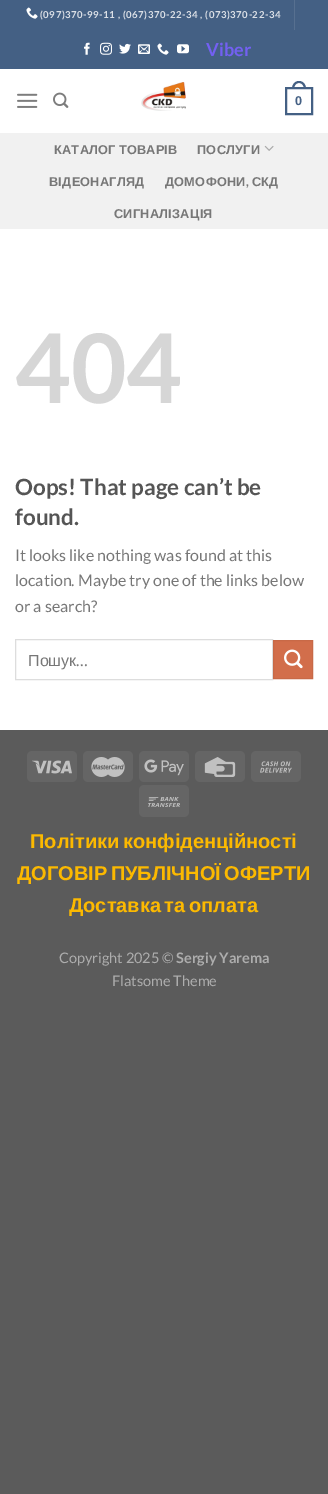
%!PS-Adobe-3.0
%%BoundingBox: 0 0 328 1494
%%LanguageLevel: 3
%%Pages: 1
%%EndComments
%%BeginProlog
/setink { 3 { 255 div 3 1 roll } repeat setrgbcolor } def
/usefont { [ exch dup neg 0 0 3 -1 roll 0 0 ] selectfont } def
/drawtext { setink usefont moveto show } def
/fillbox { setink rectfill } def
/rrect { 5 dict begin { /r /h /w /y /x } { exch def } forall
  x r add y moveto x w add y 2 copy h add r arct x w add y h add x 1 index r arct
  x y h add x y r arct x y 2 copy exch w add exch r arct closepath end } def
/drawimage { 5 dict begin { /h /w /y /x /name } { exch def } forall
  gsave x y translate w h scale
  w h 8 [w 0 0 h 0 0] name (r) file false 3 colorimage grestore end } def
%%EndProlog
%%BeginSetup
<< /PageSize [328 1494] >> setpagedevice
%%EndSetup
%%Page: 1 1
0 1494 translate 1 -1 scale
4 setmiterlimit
0 0 328 1494 91 91 91 fillbox
0 69 328 661 255 255 255 fillbox
0 0 328 69 68 96 132 fillbox
(assets/img1.rgb) 26 7 12 12 drawimage
/Lato-Bold 9.6 usefont
218 223 230 setink
40 18 moveto 0.5 0 (\(097\)370-99-11 , \(067\)370-22-34 , \(073\)370-22-34) ashow
294 0 1 30 87 112 144 fillbox
(assets/img2.rgb) 84 42 6 13 drawimage
(assets/img3.rgb) 100 42 12 13 drawimage
(assets/img4.rgb) 119 43 12 11 drawimage
(assets/img5.rgb) 138 44 12 10 drawimage
(assets/img1.rgb) 157 43 12 12 drawimage
(assets/img6.rgb) 177 44 12 10 drawimage
(Viber) 206 56 /Lato-Bold 18 115 96 242 drawtext
(assets/img7.rgb) 17 93 21 15 drawimage
(assets/img8.rgb) 53 92 16 16 drawimage
(assets/img9.rgb) 141 82 45 29 drawimage
68 96 132 setink
2 setlinewidth
286 88 26 26 rectstroke
299 81 moveto 303.5 81 306 85 306 89 curveto 292 89 lineto 292 85 294.5 81 299 81 curveto closepath 299 83 moveto 302.5 83 304 86 304 89 curveto 294 89 lineto 294 86 295.5 83 299 83 curveto closepath eofill
(0) 295 105 /LiberationSans-Bold 12.75 68 96 132 drawtext
0 133 328 96 241 241 241 fillbox
119 119 119 setink
54 154 moveto -1 0 32 0.25 0 (КАТАЛОГ ТОВАРІВ) awidthshow
197 154 moveto 0.25 0 (ПОСЛУГИ) ashow
(assets/img10.rgb) 264 145 10 6 drawimage
49 186 moveto 0.25 0 (ВІДЕОНАГЛЯД) ashow
165 186 moveto 0.25 0 (ДОМОФОНИ) ashow
/Lato-Bold 12.75 usefont
246 186 moveto 0.25 0 (,) ashow
/LiberationSans-Bold 12.75 usefont
252 186 moveto 0.25 0 (СКД) ashow
114 218 moveto 0.25 0 (СИГНАЛІЗАЦІЯ) ashow
(404) 15 403 /Lato-Bold 96 214 214 214 drawtext
(Oops! That page can’t be) 15 495 /Lato-Bold 22.4 85 85 85 drawtext
(found.) 15 525 /Lato-Bold 22.4 85 85 85 drawtext
(It looks like nothing was found at this) 15 561 /Lato-Regular 16 119 119 119 drawtext
(location. Maybe try one of the links below) 15 586 /Lato-Regular 16 119 119 119 drawtext
(or a search?) 15 612 /Lato-Regular 16 119 119 119 drawtext
221 221 221 setink
1 setlinewidth
15.5 639.5 257 40 rectstroke
(Пошук) 28 666 /LiberationSans-Regular 16 119 119 119 drawtext
(…) 76 666 /Lato-Regular 16 119 119 119 drawtext
210 110 75 setink
273.5 640.5 moveto 312.5 640.5 lineto 312.5 678.5 lineto 273.5 678.5 lineto closepath gsave fill grestore
200 105 71 setink
stroke
(assets/img11.rgb) 284 649 19 20 drawimage
101 101 101 setink
27 751 50 31 5 rrect fill
(assets/img12.rgb) 32 760 40 14 drawimage
83 751 50 31 5 rrect fill
(assets/img13.rgb) 91 757 34 20 drawimage
139 751 50 31 5 rrect fill
(assets/img14.rgb) 144 759 40 17 drawimage
195 751 50 31 5 rrect fill
(assets/img15.rgb) 204 757 32 20 drawimage
251 751 50 31 5 rrect fill
(assets/img16.rgb) 260 761 32 12 drawimage
139 785 50 32 5 rrect fill
(assets/img17.rgb) 148 797 32 10 drawimage
/LiberationSans-Bold 20 usefont
252 185 0 setink
30 848 moveto -2 0 32 (Політики конфіденційності) widthshow
17 880 moveto -2 0 32 (ДОГОВІР ПУБЛІЧНОЇ ОФЕРТИ) widthshow
69 912 moveto -2 0 32 (Доставка та оплата) widthshow
(Copyright 2025 ©) 59 963 /Lato-Regular 14.5 173 173 173 drawtext
(Sergiy Yarema) 176 963 /Lato-Bold 14.5 173 173 173 drawtext
(Flatsome Theme) 112 986 /Lato-Regular 14.5 173 173 173 drawtext
showpage
%%EOF
